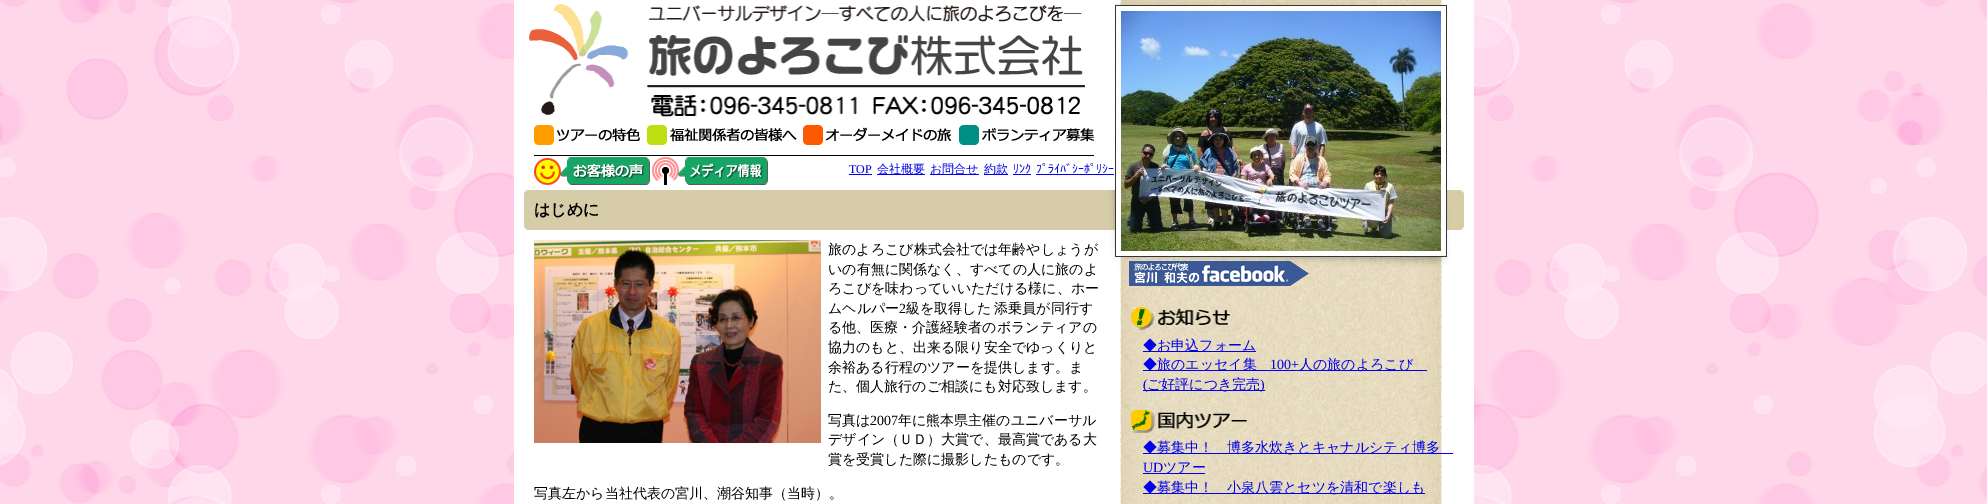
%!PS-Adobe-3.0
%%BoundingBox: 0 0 1987 504
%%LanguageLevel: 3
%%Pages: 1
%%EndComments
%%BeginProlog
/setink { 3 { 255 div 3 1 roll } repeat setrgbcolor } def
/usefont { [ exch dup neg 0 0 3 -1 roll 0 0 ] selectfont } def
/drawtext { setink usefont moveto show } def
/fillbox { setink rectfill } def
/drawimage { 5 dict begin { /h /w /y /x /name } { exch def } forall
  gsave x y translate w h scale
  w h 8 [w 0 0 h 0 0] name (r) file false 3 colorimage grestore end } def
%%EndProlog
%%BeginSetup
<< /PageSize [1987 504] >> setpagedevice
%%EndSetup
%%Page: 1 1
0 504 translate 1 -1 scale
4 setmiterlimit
0 0 1987 504 255 255 255 fillbox
(assets/img1.rgb) 0 0 1987 504 drawimage
(assets/img2.rgb) 514 0 960 504 drawimage
(assets/img3.rgb) 524 190 940 81 drawimage
(assets/img4.rgb) 529 4 556 113 drawimage
(assets/img5.rgb) 534 125 560 30 drawimage
534 155 560 1 0 0 0 fillbox
(assets/img6.rgb) 534 157 116 28 drawimage
(assets/img7.rgb) 652 157 116 28 drawimage
(TOP) 849 173 /LiberationSerif-Regular 12 0 0 238 drawtext
849 174 23 1 0 0 238 fillbox
877 174 48 1 0 0 238 fillbox
(会社概要) 877 173 /WenQuanYiZenHei-Medium 12 0 0 238 drawtext
930 174 49 1 0 0 238 fillbox
(お問合せ) 930 173 /WenQuanYiZenHei-Medium 12 0 0 238 drawtext
984 174 24 1 0 0 238 fillbox
(約款) 984 173 /WenQuanYiZenHei-Medium 12 0 0 238 drawtext
(ﾘﾝｸ) 1013 173 /IPAPGothic-Regular 12 0 0 238 drawtext
1013 174 18 1 0 0 238 fillbox
(ﾌﾟﾗｲﾊﾞｼｰﾎﾟﾘｼｰ) 1036 173 /IPAPGothic-Regular 12 0 0 238 drawtext
1036 174 78 1 0 0 238 fillbox
(assets/img8.rgb) 1115 0 338 251 drawimage
(はじめに) 534 215 /WenQuanYiZenHei-Bold 16 0 0 0 drawtext
(assets/img9.rgb) 534 240 287 203 drawimage
(旅のよろこび株式会社では年齢やしょうが) 828 254 /WenQuanYiZenHei-Medium 14 0 0 0 drawtext
(いの有無に関係なく、すべての人に旅のよ) 828 274 /WenQuanYiZenHei-Medium 14 0 0 0 drawtext
(ろこびを味わっていいただける様に、ホー) 828 293 /WenQuanYiZenHei-Medium 14 0 0 0 drawtext
(ムヘルパー) 828 313 /WenQuanYiZenHei-Medium 14 0 0 0 drawtext
(2) 899 313 /LiberationSerif-Regular 14 0 0 0 drawtext
/WenQuanYiZenHei-Medium 14 usefont
906 313 moveto -1 0 32 (級を取得した 添乗員が同行す) widthshow
(る他、医療・介護経験者のボランティアの) 828 332 /WenQuanYiZenHei-Medium 14 0 0 0 drawtext
(協力のもと、出来る限り安全でゆっくりと) 828 352 /WenQuanYiZenHei-Medium 14 0 0 0 drawtext
(余裕ある行程のツアーを提供します。ま) 828 372 /WenQuanYiZenHei-Medium 14 0 0 0 drawtext
(た、個人旅行のご相談にも対応致します。) 828 391 /WenQuanYiZenHei-Medium 14 0 0 0 drawtext
(写真は) 828 425 /WenQuanYiZenHei-Medium 14 0 0 0 drawtext
(2007) 870 425 /LiberationSerif-Regular 14 0 0 0 drawtext
(年に熊本県主催のユニバーサル) 898 425 /WenQuanYiZenHei-Medium 14 0 0 0 drawtext
(デザイン（ＵＤ）大賞で、最高賞である大) 828 444 /WenQuanYiZenHei-Medium 14 0 0 0 drawtext
(賞を受賞した際に撮影したものです。) 828 464 /WenQuanYiZenHei-Medium 14 0 0 0 drawtext
(写真左から当社代表の宮川、潮谷知事（当時）。) 534 498 /WenQuanYiZenHei-Medium 14 0 0 0 drawtext
(assets/img10.rgb) 1129 261 180 25 drawimage
(assets/img11.rgb) 1131 307 99 23 drawimage
1143 351 113 1 0 0 238 fillbox
(◆お申込フォーム) 1143 350 /WenQuanYiZenHei-Medium 14 0 0 238 drawtext
1143 370 284 1 0 0 238 fillbox
(◆旅のエッセイ集) 1143 369 /WenQuanYiZenHei-Medium 14 0 0 238 drawtext
(100+) 1270 369 /LiberationSerif-Regular 14 0 0 238 drawtext
(人の旅のよろこび) 1299 369 /WenQuanYiZenHei-Medium 14 0 0 238 drawtext
1143 390 122 1 0 0 238 fillbox
(\() 1143 389 /LiberationSerif-Regular 14 0 0 238 drawtext
(ご好評につき完売) 1147 389 /WenQuanYiZenHei-Medium 14 0 0 238 drawtext
(\)) 1260 389 /LiberationSerif-Regular 14 0 0 238 drawtext
(assets/img12.rgb) 1131 410 116 23 drawimage
1143 453 310 1 0 0 238 fillbox
(◆募集中！　博多水炊きとキャナルシティ博多) 1143 452 /WenQuanYiZenHei-Medium 14 0 0 238 drawtext
(UD) 1143 472 /LiberationSerif-Regular 14 0 0 238 drawtext
1143 473 62 1 0 0 238 fillbox
(ツアー) 1163 472 /WenQuanYiZenHei-Medium 14 0 0 238 drawtext
1143 493 282 1 0 0 238 fillbox
(◆募集中！　小泉八雲とセツを清和で楽しも) 1143 492 /WenQuanYiZenHei-Medium 14 0 0 238 drawtext
showpage
%%EOF
